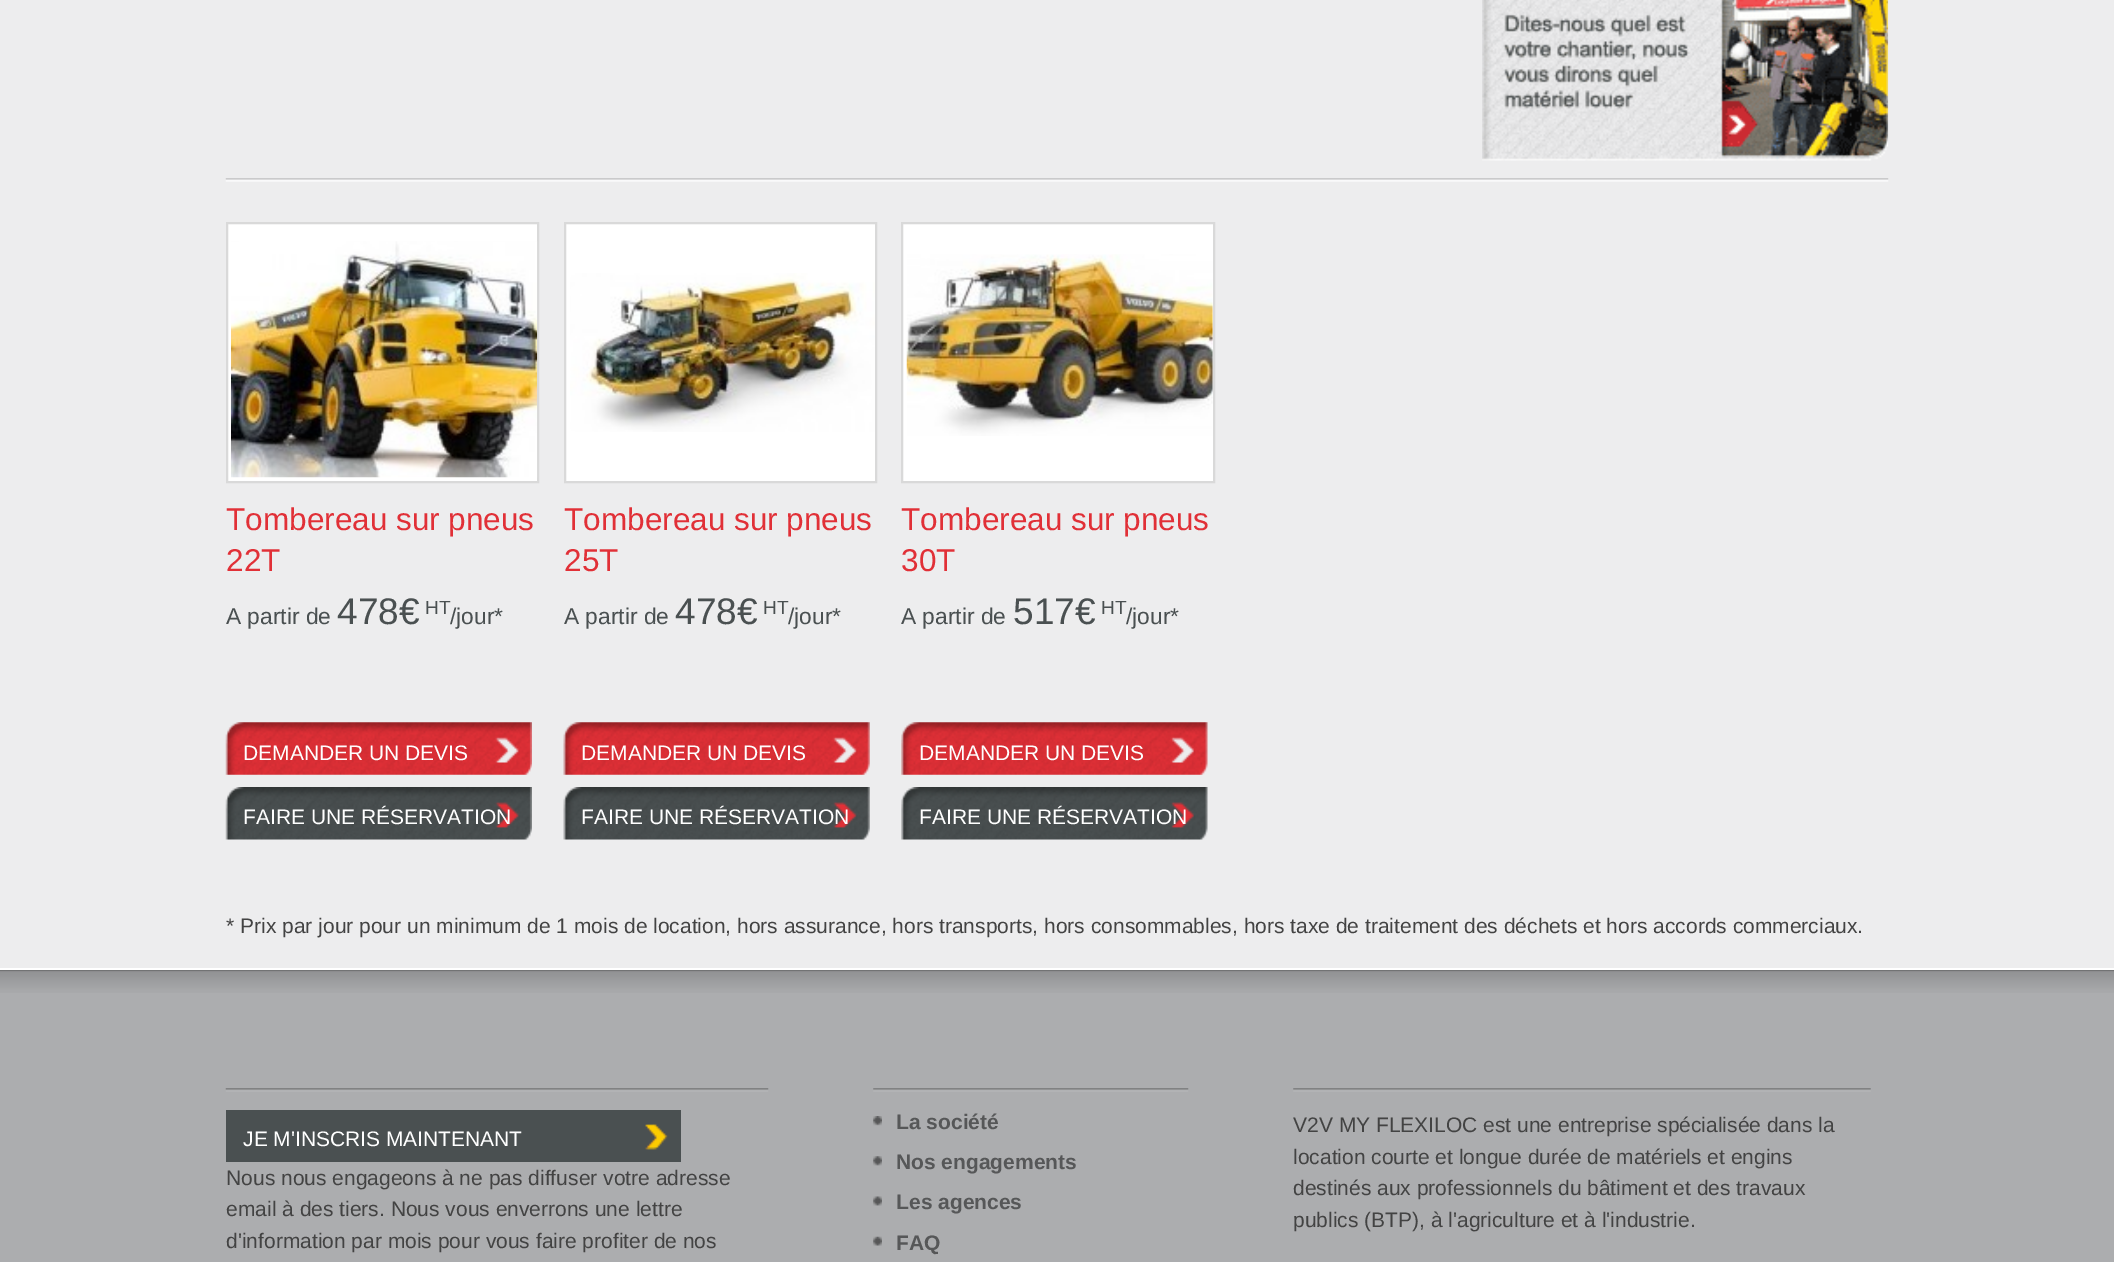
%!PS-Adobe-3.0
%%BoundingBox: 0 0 2114 1262
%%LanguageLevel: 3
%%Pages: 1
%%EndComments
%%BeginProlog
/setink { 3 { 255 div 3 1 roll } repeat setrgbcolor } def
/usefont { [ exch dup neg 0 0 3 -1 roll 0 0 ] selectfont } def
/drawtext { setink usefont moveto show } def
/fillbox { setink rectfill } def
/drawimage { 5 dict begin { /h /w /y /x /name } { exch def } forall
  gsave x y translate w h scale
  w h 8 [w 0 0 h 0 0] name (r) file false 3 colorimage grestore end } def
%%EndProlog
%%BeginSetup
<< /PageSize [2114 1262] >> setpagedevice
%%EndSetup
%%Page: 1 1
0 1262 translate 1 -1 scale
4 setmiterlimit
0 0 2114 1262 237 237 238 fillbox
(assets/img1.rgb) 225 178 1664 4 drawimage
(assets/img2.rgb) 1482 0 407 161 drawimage
255 255 255 setink
227 223 moveto 538 223 lineto 538 482 lineto 227 482 lineto closepath gsave fill grestore
217 217 217 setink
2 setlinewidth
stroke
(assets/img3.rgb) 231 241 307 237 drawimage
(Tombereau sur pneus) 226 530 /LiberationSans-Regular 31.5 225 48 55 drawtext
(22T) 226 571 /LiberationSans-Regular 31.5 225 48 55 drawtext
(A partir de) 226 624 /LiberationSans-Regular 22.75 74 80 81 drawtext
(478€) 337 624 /LiberationSans-Regular 37 74 80 81 drawtext
(HT) 425 614 /LiberationSans-Regular 19 74 80 81 drawtext
(/jour*) 450 624 /LiberationSans-Regular 22.75 74 80 81 drawtext
(assets/img4.rgb) 225 722 307 53 drawimage
(DEMANDER UN DEVIS) 243 760 /LiberationSans-Regular 21 255 255 255 drawtext
(assets/img5.rgb) 225 787 307 53 drawimage
(FAIRE UNE RÉSERVATION) 243 824 /LiberationSans-Regular 21 255 255 255 drawtext
565 223 moveto 876 223 lineto 876 482 lineto 565 482 lineto closepath gsave fill grestore
217 217 217 setink
stroke
(assets/img6.rgb) 570 273 305 159 drawimage
(Tombereau sur pneus) 564 530 /LiberationSans-Regular 31.5 225 48 55 drawtext
(25T) 564 571 /LiberationSans-Regular 31.5 225 48 55 drawtext
(A partir de) 564 624 /LiberationSans-Regular 22.75 74 80 81 drawtext
(478€) 675 624 /LiberationSans-Regular 37 74 80 81 drawtext
(HT) 763 614 /LiberationSans-Regular 19 74 80 81 drawtext
(/jour*) 788 624 /LiberationSans-Regular 22.75 74 80 81 drawtext
(assets/img7.rgb) 563 722 307 53 drawimage
(DEMANDER UN DEVIS) 581 760 /LiberationSans-Regular 21 255 255 255 drawtext
(assets/img8.rgb) 563 787 307 53 drawimage
(FAIRE UNE RÉSERVATION) 581 824 /LiberationSans-Regular 21 255 255 255 drawtext
902 223 moveto 1214 223 lineto 1214 482 lineto 902 482 lineto closepath gsave fill grestore
217 217 217 setink
stroke
(assets/img9.rgb) 906 254 307 182 drawimage
(Tombereau sur pneus) 901 530 /LiberationSans-Regular 31.5 225 48 55 drawtext
(30T) 901 571 /LiberationSans-Regular 31.5 225 48 55 drawtext
(A partir de) 901 624 /LiberationSans-Regular 22.75 74 80 81 drawtext
(517€) 1013 624 /LiberationSans-Regular 37 74 80 81 drawtext
(HT) 1101 614 /LiberationSans-Regular 19 74 80 81 drawtext
(/jour*) 1126 624 /LiberationSans-Regular 22.75 74 80 81 drawtext
(assets/img10.rgb) 901 722 307 53 drawimage
(DEMANDER UN DEVIS) 919 760 /LiberationSans-Regular 21 255 255 255 drawtext
(assets/img11.rgb) 901 787 307 53 drawimage
(FAIRE UNE RÉSERVATION) 919 824 /LiberationSans-Regular 21 255 255 255 drawtext
(* Prix par jour pour un minimum de 1 mois de location, hors assurance, hors transports, hors consommables, hors taxe de traitement des déchets et hors accords commerciaux.) 226 933 /LiberationSans-Regular 21 67 67 67 drawtext
0 970 2114 292 172 173 175 fillbox
(assets/img12.rgb) 0 970 2114 23 drawimage
0 968 2114 2 255 255 255 fillbox
(assets/img13.rgb) 225 1088 544 4 drawimage
226 1110 455 52 74 80 81 fillbox
(assets/img14.rgb) 645 1124 23 26 drawimage
(JE M'INSCRIS MAINTENANT) 243 1146 /LiberationSans-Regular 21 255 255 255 drawtext
(Nous nous engageons à ne pas diffuser votre adresse) 226 1185 /LiberationSans-Regular 21 67 67 67 drawtext
(email à des tiers. Nous vous enverrons une lettre) 226 1216 /LiberationSans-Regular 21 67 67 67 drawtext
(d'information par mois pour vous faire profiter de nos) 226 1248 /LiberationSans-Regular 21 67 67 67 drawtext
(assets/img15.rgb) 873 1088 316 4 drawimage
(assets/img16.rgb) 873 1116 9 10 drawimage
(La société) 896 1129 /LiberationSans-Bold 21 86 87 88 drawtext
(assets/img17.rgb) 873 1156 9 10 drawimage
(Nos engagements) 896 1169 /LiberationSans-Bold 21 86 87 88 drawtext
(assets/img18.rgb) 873 1196 9 10 drawimage
(Les agences) 896 1209 /LiberationSans-Bold 21 86 87 88 drawtext
(assets/img19.rgb) 873 1236 9 10 drawimage
(FAQ) 896 1250 /LiberationSans-Bold 21 86 87 88 drawtext
(assets/img20.rgb) 1293 1088 578 4 drawimage
(V2V MY FLEXILOC est une entreprise spécialisée dans la) 1293 1132 /LiberationSans-Regular 21 67 67 67 drawtext
(location courte et longue durée de matériels et engins) 1293 1164 /LiberationSans-Regular 21 67 67 67 drawtext
(destinés aux professionnels du bâtiment et des travaux) 1293 1195 /LiberationSans-Regular 21 67 67 67 drawtext
(publics \(BTP\), à l'agriculture et à l'industrie.) 1293 1227 /LiberationSans-Regular 21 67 67 67 drawtext
showpage
%%EOF
